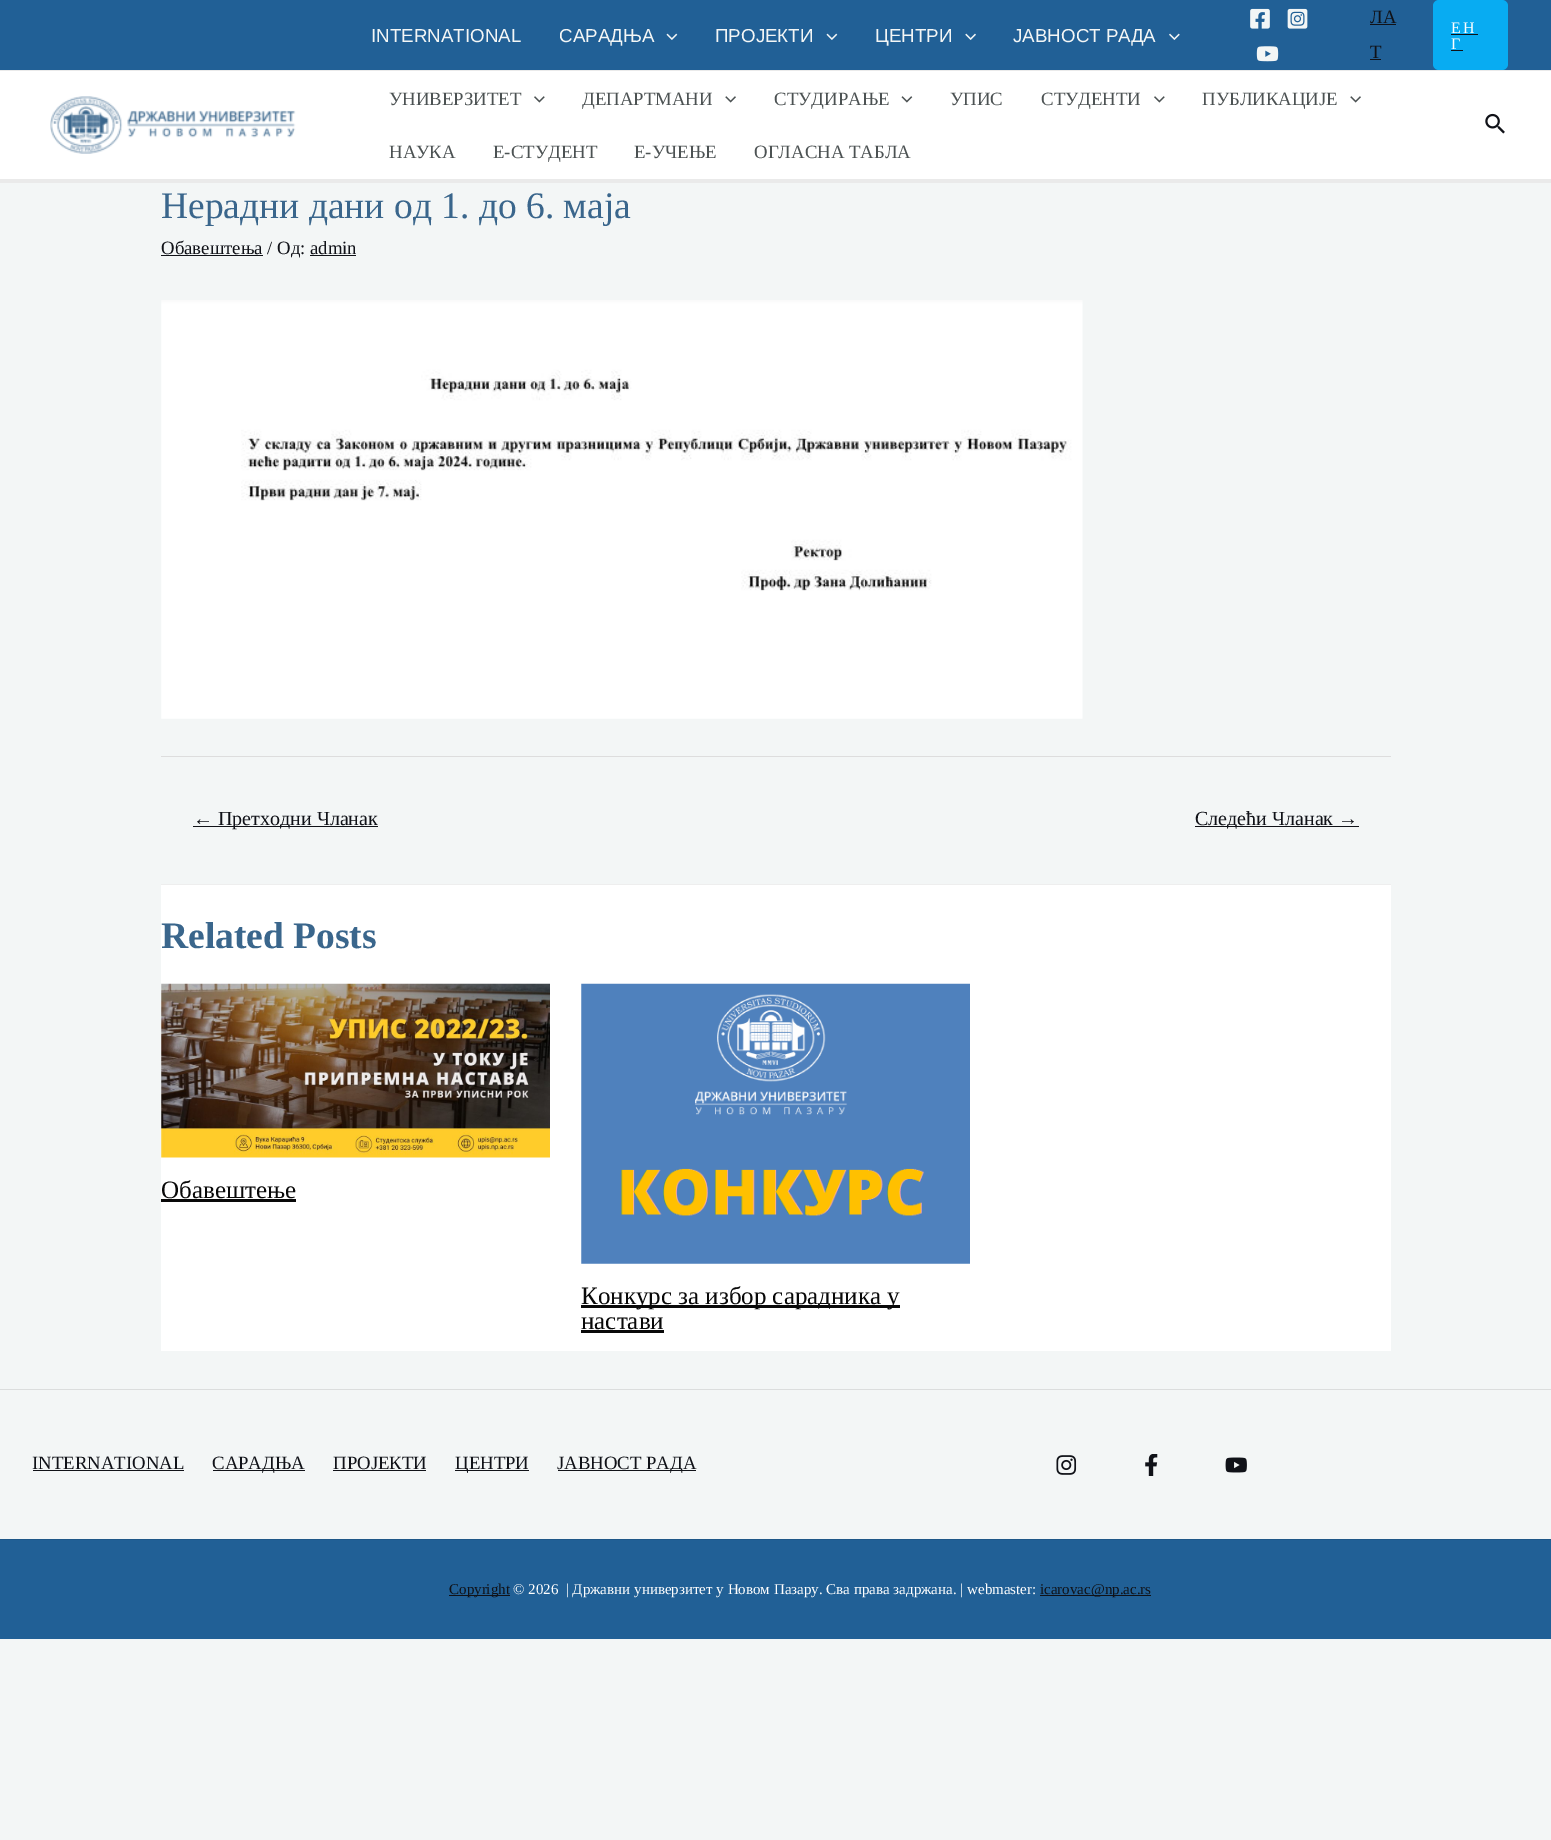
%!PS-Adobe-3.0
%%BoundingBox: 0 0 1551 1840
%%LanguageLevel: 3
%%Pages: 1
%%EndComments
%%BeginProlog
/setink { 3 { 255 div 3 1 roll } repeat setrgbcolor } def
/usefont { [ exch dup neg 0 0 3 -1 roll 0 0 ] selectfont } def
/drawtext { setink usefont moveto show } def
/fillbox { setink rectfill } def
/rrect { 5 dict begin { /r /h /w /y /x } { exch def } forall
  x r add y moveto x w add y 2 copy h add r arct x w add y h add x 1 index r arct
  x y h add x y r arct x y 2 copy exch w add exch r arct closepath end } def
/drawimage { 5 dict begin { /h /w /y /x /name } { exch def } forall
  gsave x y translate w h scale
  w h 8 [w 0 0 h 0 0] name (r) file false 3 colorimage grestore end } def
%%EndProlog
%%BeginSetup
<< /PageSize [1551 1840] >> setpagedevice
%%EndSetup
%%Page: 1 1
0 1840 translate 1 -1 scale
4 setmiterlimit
0 0 1551 1840 243 246 246 fillbox
0 0 1551 70 33 96 150 fillbox
0 70 1551 1 234 234 234 fillbox
(INTERNATIONAL) 371 42 /LiberationSans-Regular 18.75 243 246 246 drawtext
(САРАДЊА) 559 42 /LiberationSans-Regular 18.75 243 246 246 drawtext
(assets/img1.rgb) 666 33 12 7 drawimage
(ПРОЈЕКТИ) 715 42 /LiberationSans-Regular 18.75 243 246 246 drawtext
(assets/img1.rgb) 826 33 12 7 drawimage
(ЦЕНТРИ) 875 42 /LiberationSans-Regular 18.75 243 246 246 drawtext
(assets/img2.rgb) 965 33 11 7 drawimage
(ЈАВНОСТ РАДА) 1013 42 /LiberationSans-Regular 18.75 243 246 246 drawtext
(assets/img3.rgb) 1169 33 11 7 drawimage
(assets/img4.rgb) 1250 8 20 21 drawimage
(assets/img5.rgb) 1287 8 21 21 drawimage
(assets/img6.rgb) 1256 46 23 16 drawimage
(ЛА) 1370 23 /LiberationSerif-Regular 18.75 16 18 24 drawtext
1370 24 26 1 16 18 24 fillbox
(Т) 1370 58 /LiberationSerif-Regular 18.75 16 18 24 drawtext
1370 59 11 1 16 18 24 fillbox
8 172 242 setink
1433 0 75 70 6 rrect fill
/LiberationSerif-Regular 16 usefont
254 254 254 setink
1451 33 moveto 2 0 (ЕН) ashow
1451 34 27 1 16 18 24 fillbox
254 254 254 setink
1451 49 moveto 2 0 (Г) ashow
1451 50 12 1 16 18 24 fillbox
0 71 1551 108 255 255 255 fillbox
0 179 1551 4 234 234 234 fillbox
(assets/img7.rgb) 50 96 246 58 drawimage
(УНИВЕРЗИТЕТ) 389 105 /LiberationSerif-Regular 18.75 76 82 83 drawtext
(assets/img8.rgb) 534 96 11 7 drawimage
(ДЕПАРТМАНИ) 582 105 /LiberationSerif-Regular 18.75 76 82 83 drawtext
(assets/img9.rgb) 725 96 11 7 drawimage
(СТУДИРАЊЕ) 774 105 /LiberationSerif-Regular 18.75 76 82 83 drawtext
(assets/img10.rgb) 901 96 12 7 drawimage
(УПИС) 950 105 /LiberationSerif-Regular 18.75 76 82 83 drawtext
(СТУДЕНТИ) 1041 105 /LiberationSerif-Regular 18.75 76 82 83 drawtext
(assets/img8.rgb) 1154 96 11 7 drawimage
(ПУБЛИКАЦИЈЕ) 1202 105 /LiberationSerif-Regular 18.75 76 82 83 drawtext
(assets/img9.rgb) 1350 96 11 7 drawimage
(НАУКА) 389 158 /LiberationSerif-Regular 18.75 76 82 83 drawtext
(Е-СТУДЕНТ) 493 158 /LiberationSerif-Regular 18.75 76 82 83 drawtext
(Е-УЧЕЊЕ) 634 158 /LiberationSerif-Regular 18.75 76 82 83 drawtext
(ОГЛАСНА ТАБЛА) 754 158 /LiberationSerif-Regular 18.75 76 82 83 drawtext
(assets/img11.rgb) 1485 113 20 21 drawimage
(Нерадни дани од 1. до 6. маја) 161 218 /LiberationSerif-Regular 37.5 58 102 140 drawtext
161 255 102 1 16 18 24 fillbox
(Обавештења / Од: admin) 161 254 /LiberationSerif-Regular 18.75 16 18 24 drawtext
310 255 46 1 16 18 24 fillbox
(assets/img12.rgb) 161 300 922 419 drawimage
161 756 1230 1 221 221 221 fillbox
193 826 185 1 16 18 24 fillbox
(← Претходни Чланак) 193 825 /LiberationSerif-Regular 20 16 18 24 drawtext
1195 826 164 1 16 18 24 fillbox
(Следећи Чланак →) 1195 825 /LiberationSerif-Regular 20 16 18 24 drawtext
161 885 1230 466 255 255 255 fillbox
161 884 1230 1 238 238 238 fillbox
(Related Posts) 161 948 /LiberationSerif-Bold 37.5 58 102 140 drawtext
(assets/img13.rgb) 161 983 389 175 drawimage
(Обавештење) 161 1198 /LiberationSerif-Regular 25 9 9 9 drawtext
161 1199 135 3 9 9 9 fillbox
(assets/img14.rgb) 581 983 389 281 drawimage
581 1305 319 3 9 9 9 fillbox
(Конкурс за избор сарадника у) 581 1304 /LiberationSerif-Regular 25 9 9 9 drawtext
(настави) 581 1329 /LiberationSerif-Regular 25 9 9 9 drawtext
581 1330 83 3 9 9 9 fillbox
0 1389 1551 1 219 221 221 fillbox
(INTERNATIONAL) 32 1469 /LiberationSerif-Regular 18.75 16 18 24 drawtext
33 1470 151 1 16 18 24 fillbox
213 1470 92 1 16 18 24 fillbox
(САРАДЊА) 212 1469 /LiberationSerif-Regular 18.75 16 18 24 drawtext
(ПРОЈЕКТИ) 333 1469 /LiberationSerif-Regular 18.75 16 18 24 drawtext
333 1470 93 1 16 18 24 fillbox
455 1470 74 1 16 18 24 fillbox
(ЦЕНТРИ) 455 1469 /LiberationSerif-Regular 18.75 16 18 24 drawtext
558 1470 138 1 16 18 24 fillbox
(ЈАВНОСТ РАДА) 557 1469 /LiberationSerif-Regular 18.75 16 18 24 drawtext
(assets/img15.rgb) 1056 1455 21 20 drawimage
(assets/img16.rgb) 1145 1454 13 22 drawimage
(assets/img17.rgb) 1225 1457 22 16 drawimage
0 1540 1551 99 33 96 150 fillbox
0 1539 1551 1 30 86 135 fillbox
449 1595 61 1 16 18 24 fillbox
(Copyright) 449 1594 /LiberationSerif-Regular 15 16 18 24 drawtext
(© 2026  | Државни универзитет у Новом Пазару. Сва права задржана. | webmaster:) 513 1594 /LiberationSerif-Regular 15 254 254 254 drawtext
1040 1595 111 1 16 18 24 fillbox
(icarovac@np.ac.rs) 1040 1594 /LiberationSerif-Regular 15 16 18 24 drawtext
showpage
%%EOF
